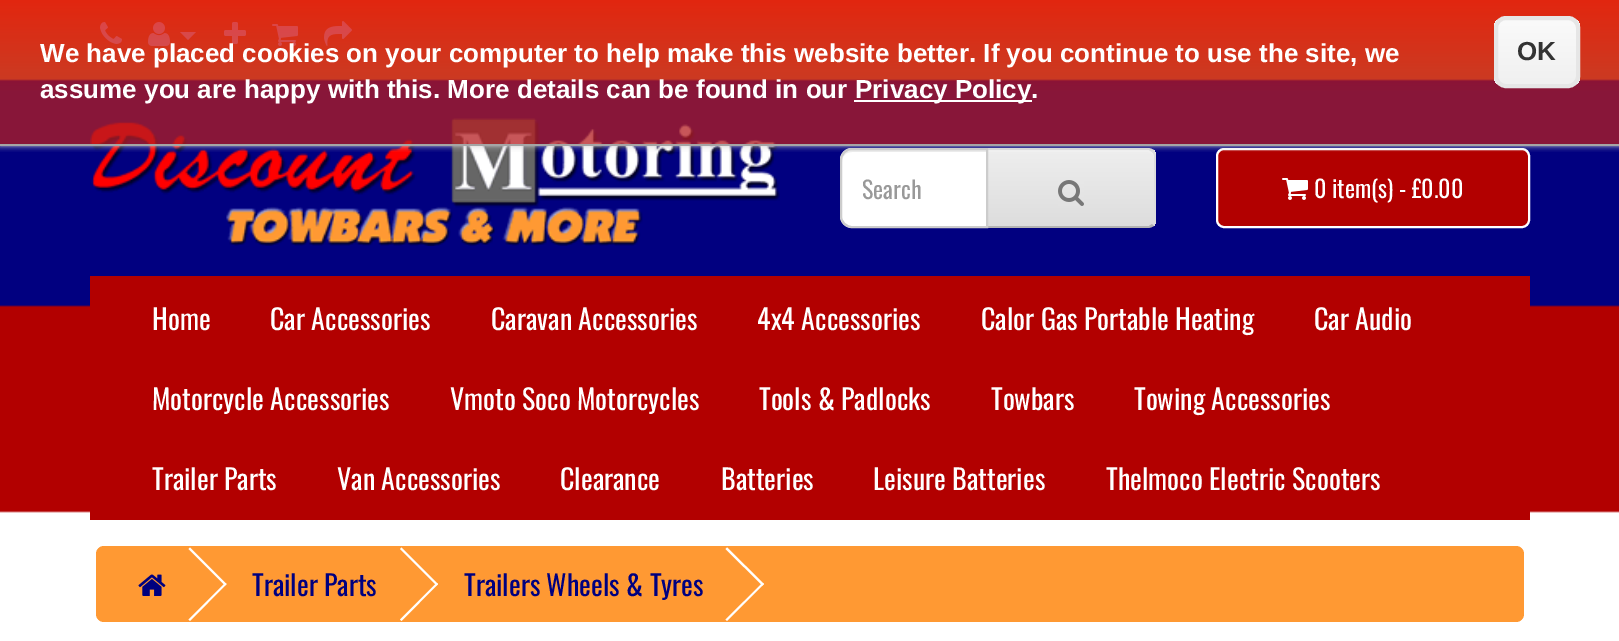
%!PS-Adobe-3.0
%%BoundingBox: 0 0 1619 641
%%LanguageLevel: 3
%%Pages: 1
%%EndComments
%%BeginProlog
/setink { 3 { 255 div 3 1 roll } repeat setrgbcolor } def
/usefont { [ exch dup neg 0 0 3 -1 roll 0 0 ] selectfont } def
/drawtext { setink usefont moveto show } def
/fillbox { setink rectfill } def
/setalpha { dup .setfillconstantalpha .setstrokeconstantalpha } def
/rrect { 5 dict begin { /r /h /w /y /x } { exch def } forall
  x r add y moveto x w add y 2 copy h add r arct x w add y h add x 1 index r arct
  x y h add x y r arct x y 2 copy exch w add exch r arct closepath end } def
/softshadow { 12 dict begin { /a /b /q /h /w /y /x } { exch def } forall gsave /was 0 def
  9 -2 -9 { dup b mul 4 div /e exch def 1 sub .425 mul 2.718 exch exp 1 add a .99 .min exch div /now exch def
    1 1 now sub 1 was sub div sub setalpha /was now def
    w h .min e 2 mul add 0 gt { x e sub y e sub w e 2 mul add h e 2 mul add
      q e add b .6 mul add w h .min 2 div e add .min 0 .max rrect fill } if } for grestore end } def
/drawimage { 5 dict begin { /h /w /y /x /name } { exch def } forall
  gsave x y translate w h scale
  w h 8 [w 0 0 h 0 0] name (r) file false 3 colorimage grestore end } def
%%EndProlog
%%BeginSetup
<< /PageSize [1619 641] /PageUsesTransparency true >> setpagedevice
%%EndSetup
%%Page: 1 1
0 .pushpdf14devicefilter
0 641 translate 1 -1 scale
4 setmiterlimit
0 0 1619 641 255 255 255 fillbox
(assets/img1.rgb) 0 78 1619 435 drawimage
0 0 1619 78 255 153 51 fillbox
(assets/img2.rgb) 100 22 22 22 drawimage
(assets/img3.rgb) 148 22 22 24 drawimage
255 255 255 setink
180 32 moveto 196 32 lineto 188 40 lineto closepath fill
(assets/img4.rgb) 224 22 22 22 drawimage
(assets/img5.rgb) 272 24 26 22 drawimage
(assets/img6.rgb) 324 21 28 25 drawimage
(assets/img7.rgb) 90 118 690 128 drawimage
gsave
986 148 moveto 1148 148 lineto 1152.5 148 1156 151.5 1156 156 curveto 1156 220 lineto 1156 224.5 1152.5 228 1148 228 curveto 986 228 lineto closepath clip newpath
gsave 988 150 moveto 1156 150 lineto 1156 226 lineto 988 226 lineto closepath clip newpath
<< /ShadingType 2 /ColorSpace /DeviceRGB /Coords [1071 150 1071 226] /Extend [true true] /Function << /FunctionType 2 /Domain [0 1] /C0 [0.933 0.933 0.933] /C1 [0.867 0.867 0.867] /N 1 >> >> shfill grestore
grestore
241 241 241 setink
988 152 moveto 1148 152 lineto 1151 152 1154 155 1154 158 curveto 1154 156 lineto 1154 153 1151 150 1148 150 curveto 988 150 lineto closepath fill
221 221 221 setink
986 148 moveto 988 150 lineto 1149 150 lineto 1152 152 lineto 1154 150 lineto 1152 149 1150 148 1148 148 curveto closepath fill
1156 220 moveto 1156 156 lineto 1156 154 1155 152 1154 150 curveto 1152 152 lineto 1153 153 1154 154 1154 156 curveto 1154 220 lineto 1154 222 1153 223 1152 224 curveto 1154 226 lineto 1155 224 1156 222 1156 220 curveto closepath fill
179 179 179 setink
1148 228 moveto 1150 228 1152 227 1154 226 curveto 1152 224 lineto 1149 226 lineto 988 226 lineto 986 228 lineto closepath fill
255 255 255 setink
852 148 moveto 988 148 lineto 988 228 lineto 852 228 lineto 845.5 228 840 222.5 840 216 curveto 840 160 lineto 840 153.5 845.5 148 852 148 curveto closepath fill
236 236 236 setink
852 152 moveto 986 152 lineto 986 150 lineto 852 150 lineto 846 150 842 154 842 160 curveto 842 162 lineto 842 156 846 152 852 152 curveto closepath fill
204 204 204 setink
2 setlinewidth
852 149 moveto 987 149 lineto 987 227 lineto 852 227 lineto 846 227 841 222 841 216 curveto 841 160 lineto 841 154 846 149 852 149 curveto closepath stroke
178 0 0 setink
1217 149 312 78 7 rrect gsave fill grestore
255 255 255 setink
stroke
gsave
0 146 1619 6 rectclip
204 204 204 setink
0 0 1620 146 0 3 1 softshadow
grestore
0.75 setalpha
gsave 0 0 moveto 1619 0 lineto 1619 144 lineto 0 144 lineto closepath clip newpath
<< /ShadingType 2 /ColorSpace /DeviceRGB /Coords [810 0 810 144] /Extend [true true] /Function << /FunctionType 3 /Domain [0 1] /Functions [<< /FunctionType 2 /Domain [0 1] /C0 [0.847 0 0.012] /C1 [0.71 0.118 0.129] /N 1 >> << /FunctionType 2 /Domain [0 1] /C0 [0.71 0.118 0.129] /C1 [0.71 0.118 0.129] /N 1 >>] /Bounds [0.64] /Encode [0 1 0 1] >> >> shfill grestore
1 setalpha
0 144 1619 2 165 165 165 fillbox
(We have placed cookies on your computer to help make this website better. If you continue to use the site, we) 40 62 /LiberationSans-Bold 26 255 255 255 drawtext
(assume you are happy with this. More details can be found in our) 40 98 /LiberationSans-Bold 26 255 255 255 drawtext
854 100 178 2 255 255 255 fillbox
(Privacy Policy.) 855 98 /LiberationSans-Bold 26 255 255 255 drawtext
gsave
1494 16 86 72 12 rrect clip newpath
gsave 1494 20 moveto 1580 20 lineto 1580 84 lineto 1494 84 lineto closepath clip newpath
<< /ShadingType 2 /ColorSpace /DeviceRGB /Coords [1537 20 1537 84] /Extend [true true] /Function << /FunctionType 2 /Domain [0 1] /C0 [0.98 0.98 0.98] /C1 [0.941 0.941 0.941] /N 1 >> >> shfill grestore
grestore
230 230 230 setink
4 setlinewidth
1496 18 82 68 10 rrect stroke
(OK) 1517 60 /LiberationSans-Bold 26 51 51 51 drawtext
(Search) 862 199 /Oswald-Regular 24 153 153 153 drawtext
(assets/img8.rgb) 1058 180 26 26 drawimage
(assets/img9.rgb) 1282 178 26 22 drawimage
(0 item\(s\) - £0.00) 1314 198 /Oswald-Regular 24 255 255 255 drawtext
90 276 1440 244 178 0 0 fillbox
(Home) 152 330 /Oswald-Regular 28 255 255 255 drawtext
(Car Accessories) 270 330 /Oswald-Regular 28 255 255 255 drawtext
(Caravan Accessories) 491 330 /Oswald-Regular 28 255 255 255 drawtext
(4x4 Accessories) 757 330 /Oswald-Regular 28 255 255 255 drawtext
(Calor Gas Portable Heating) 981 330 /Oswald-Regular 28 255 255 255 drawtext
(Car Audio) 1314 330 /Oswald-Regular 28 255 255 255 drawtext
(Motorcycle Accessories) 152 410 /Oswald-Regular 28 255 255 255 drawtext
(Vmoto Soco Motorcycles) 450 410 /Oswald-Regular 28 255 255 255 drawtext
(Tools & Padlocks) 759 410 /Oswald-Regular 28 255 255 255 drawtext
(Towbars) 991 410 /Oswald-Regular 28 255 255 255 drawtext
(Towing Accessories) 1134 410 /Oswald-Regular 28 255 255 255 drawtext
(Trailer Parts) 152 490 /Oswald-Regular 28 255 255 255 drawtext
(Van Accessories) 337 490 /Oswald-Regular 28 255 255 255 drawtext
(Clearance) 560 490 /Oswald-Regular 28 255 255 255 drawtext
(Batteries) 721 490 /Oswald-Regular 28 255 255 255 drawtext
(Leisure Batteries) 873 490 /Oswald-Regular 28 255 255 255 drawtext
(Thelmoco Electric Scooters) 1106 490 /Oswald-Regular 28 255 255 255 drawtext
255 153 51 setink
96 546 1428 76 8 rrect fill
(assets/img10.rgb) 138 574 28 22 drawimage
255 255 255 setink
188.5 549 moveto 190 547.5 lineto 226.5 584 lineto 225 585.5 lineto closepath fill
188.5 619.5 moveto 225 583 lineto 226.5 584 lineto 190 621 lineto closepath fill
(Trailer Parts) 252 596 /Oswald-Regular 28 0 0 127 drawtext
255 255 255 setink
400 549 moveto 401.5 547.5 lineto 438 584 lineto 436.5 585.5 lineto closepath fill
400 619.5 moveto 436.5 583 lineto 438 584 lineto 401.5 621 lineto closepath fill
(Trailers Wheels & Tyres) 464 596 /Oswald-Regular 28 0 0 127 drawtext
255 255 255 setink
725.5 549 moveto 727 547.5 lineto 764 584 lineto 762.5 585.5 lineto closepath fill
725.5 619.5 moveto 762.5 583 lineto 764 584 lineto 727 621 lineto closepath fill
.poppdf14devicefilter showpage
%%EOF
